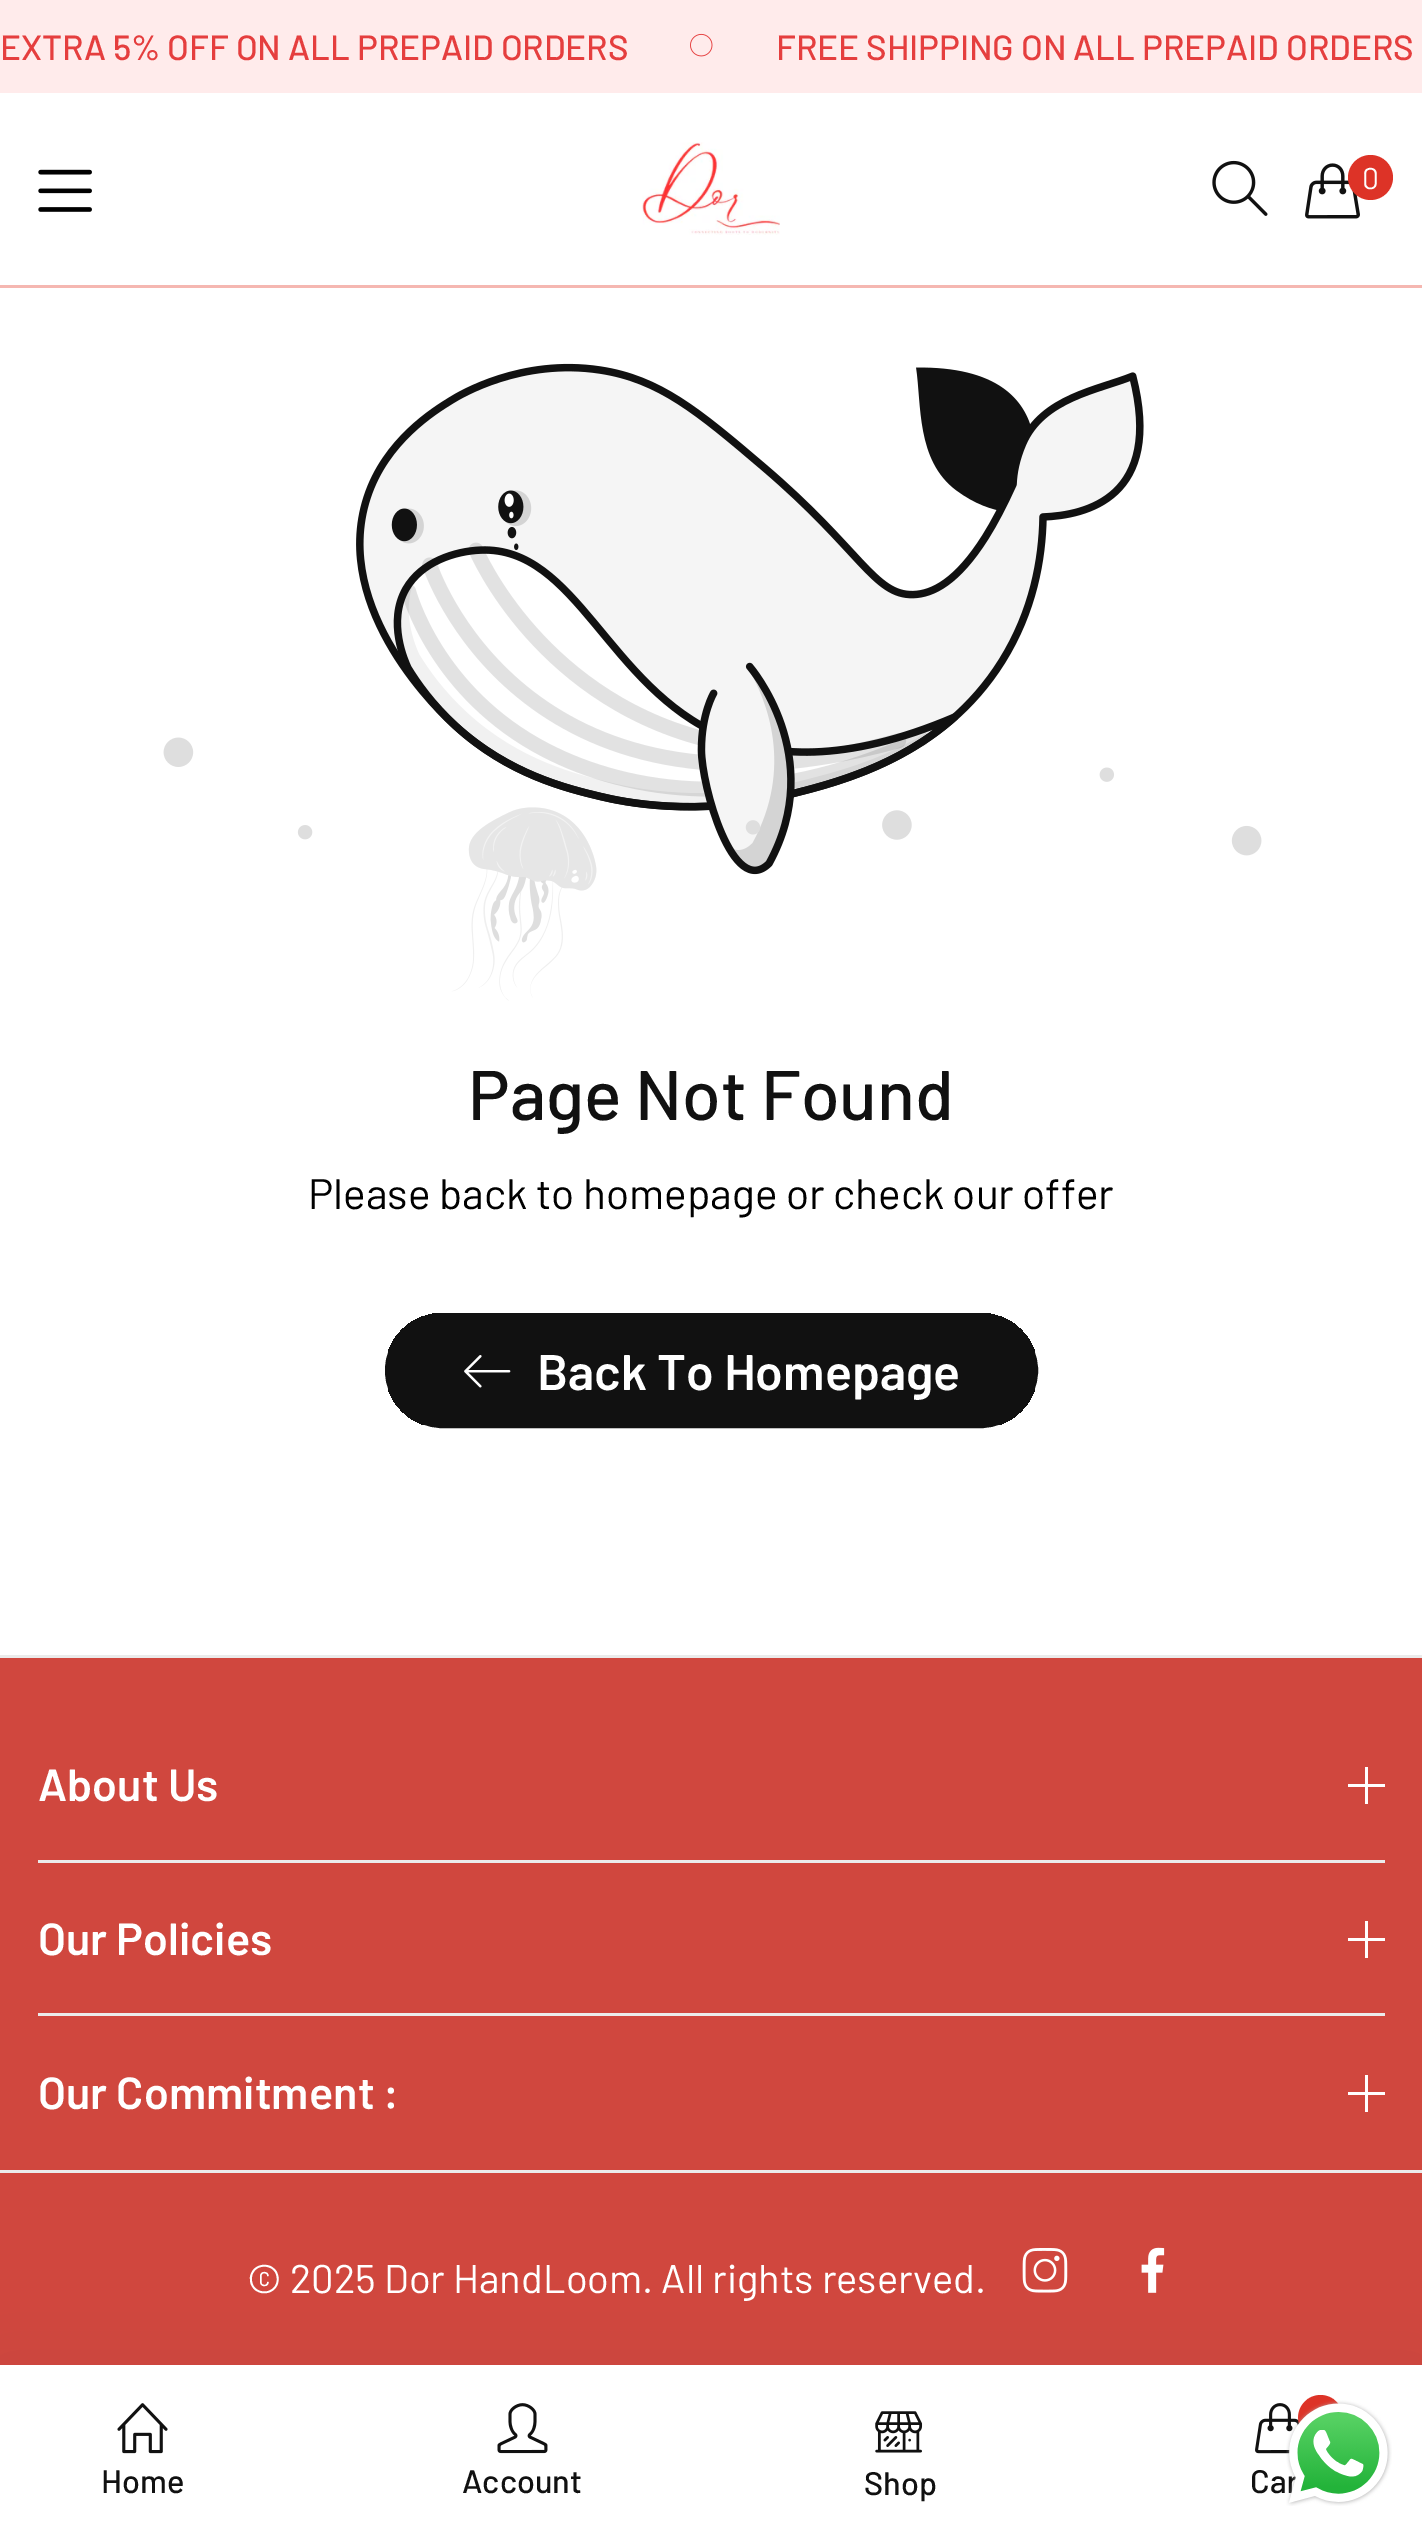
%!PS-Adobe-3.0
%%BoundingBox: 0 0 1422 2536
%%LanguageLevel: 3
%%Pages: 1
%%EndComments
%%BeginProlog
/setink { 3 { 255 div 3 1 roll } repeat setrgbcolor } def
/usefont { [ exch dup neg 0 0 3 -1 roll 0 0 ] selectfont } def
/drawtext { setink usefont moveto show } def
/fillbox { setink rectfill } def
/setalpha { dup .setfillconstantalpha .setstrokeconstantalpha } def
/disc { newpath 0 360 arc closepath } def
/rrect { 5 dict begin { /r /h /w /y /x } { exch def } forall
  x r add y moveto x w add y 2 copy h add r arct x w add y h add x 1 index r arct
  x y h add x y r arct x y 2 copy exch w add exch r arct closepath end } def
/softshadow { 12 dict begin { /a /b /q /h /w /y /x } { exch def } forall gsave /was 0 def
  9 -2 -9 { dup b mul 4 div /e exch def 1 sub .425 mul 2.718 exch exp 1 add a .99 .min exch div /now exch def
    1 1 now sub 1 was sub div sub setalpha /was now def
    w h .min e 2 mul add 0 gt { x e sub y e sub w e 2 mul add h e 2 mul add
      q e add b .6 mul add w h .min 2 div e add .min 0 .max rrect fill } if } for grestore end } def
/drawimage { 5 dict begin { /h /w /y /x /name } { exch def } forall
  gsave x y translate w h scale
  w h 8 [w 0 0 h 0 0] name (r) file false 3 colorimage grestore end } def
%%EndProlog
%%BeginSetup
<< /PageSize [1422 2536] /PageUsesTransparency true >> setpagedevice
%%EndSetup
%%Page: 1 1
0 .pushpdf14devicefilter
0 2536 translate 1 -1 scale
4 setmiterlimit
0 0 1422 2536 255 255 255 fillbox
0 0 1422 93 255 235 235 fillbox
(EXTRA 5% OFF ON ALL PREPAID ORDERS) 0 60 /Barlow-Medium 35 229 62 62 drawtext
(assets/img1.rgb) 690 33 23 24 drawimage
(FREE SHIPPING ON ALL PREPAID ORDERS) 776 60 /Barlow-Medium 35 229 62 62 drawtext
0 285 1422 3 245 183 177 fillbox
(assets/img2.rgb) 38 169 54 43 drawimage
(assets/img3.rgb) 642 142 138 93 drawimage
(assets/img4.rgb) 1212 160 56 56 drawimage
(assets/img5.rgb) 1305 163 55 56 drawimage
221 51 39 setink
1370.5 177.5 22.5 disc fill
(0) 1362 189 /Barlow-Regular 30 255 255 255 drawtext
(assets/img6.rgb) 163 363 1099 638 drawimage
(Page Not Found) 468 1120 /Barlow-Medium 70 17 17 17 drawtext
(Please back to homepage or check our offer) 308 1209 /Barlow-Regular 42.5 0 0 0 drawtext
gsave
385 1313 653 115 57.5 rrect clip newpath
388 1313 647 112 17 17 17 fillbox
grestore
17 17 17 setink
3 setlinewidth
386.5 1314.5 650 112 56 rrect stroke
(assets/img7.rgb) 464 1355 47 33 drawimage
(Back To Homepage) 537 1390 /Barlow-SemiBold 50 255 255 255 drawtext
0 1658 1422 707 208 71 62 fillbox
0 1655 1422 3 235 235 235 fillbox
(About Us) 38 1801 /Barlow-SemiBold 45 255 255 255 drawtext
1365 1767 3 37 255 255 255 fillbox
1348 1784 37 3 255 255 255 fillbox
38 1860 1347 3 235 235 235 fillbox
(Our Policies) 38 1955 /Barlow-SemiBold 45 255 255 255 drawtext
1365 1921 3 37 255 255 255 fillbox
1348 1938 37 3 255 255 255 fillbox
38 2013 1347 3 235 235 235 fillbox
(Our Commitment :) 38 2109 /Barlow-SemiBold 45 255 255 255 drawtext
1365 2075 3 37 255 255 255 fillbox
1348 2092 37 3 255 255 255 fillbox
0 2170 1422 3 235 235 235 fillbox
(© 2025 Dor HandLoom. All rights reserved.) 247 2293 /Barlow-Regular 40 255 255 255 drawtext
(assets/img8.rgb) 1022 2248 46 45 drawimage
(assets/img9.rgb) 1141 2247 24 46 drawimage
0 0 0 setink
0 2378 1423 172 0 37.5 0.06 softshadow
0 2365 1422 171 255 255 255 fillbox
(assets/img10.rgb) 117 2403 51 51 drawimage
(Home) 101 2493 /Barlow-Medium 32.5 17 17 17 drawtext
(assets/img11.rgb) 497 2403 51 51 drawimage
(Account) 462 2493 /Barlow-Medium 32.5 17 17 17 drawtext
(assets/img12.rgb) 875 2411 48 42 drawimage
(Shop) 864 2495 /Barlow-Medium 32.5 17 17 17 drawtext
(assets/img13.rgb) 1255 2403 44 51 drawimage
221 51 39 setink
1320.5 2417.5 22.5 disc fill
(Car) 1250 2493 /Barlow-Medium 32.5 17 17 17 drawtext
(assets/img14.rgb) 1286 2400 106 106 drawimage
.poppdf14devicefilter showpage
%%EOF
